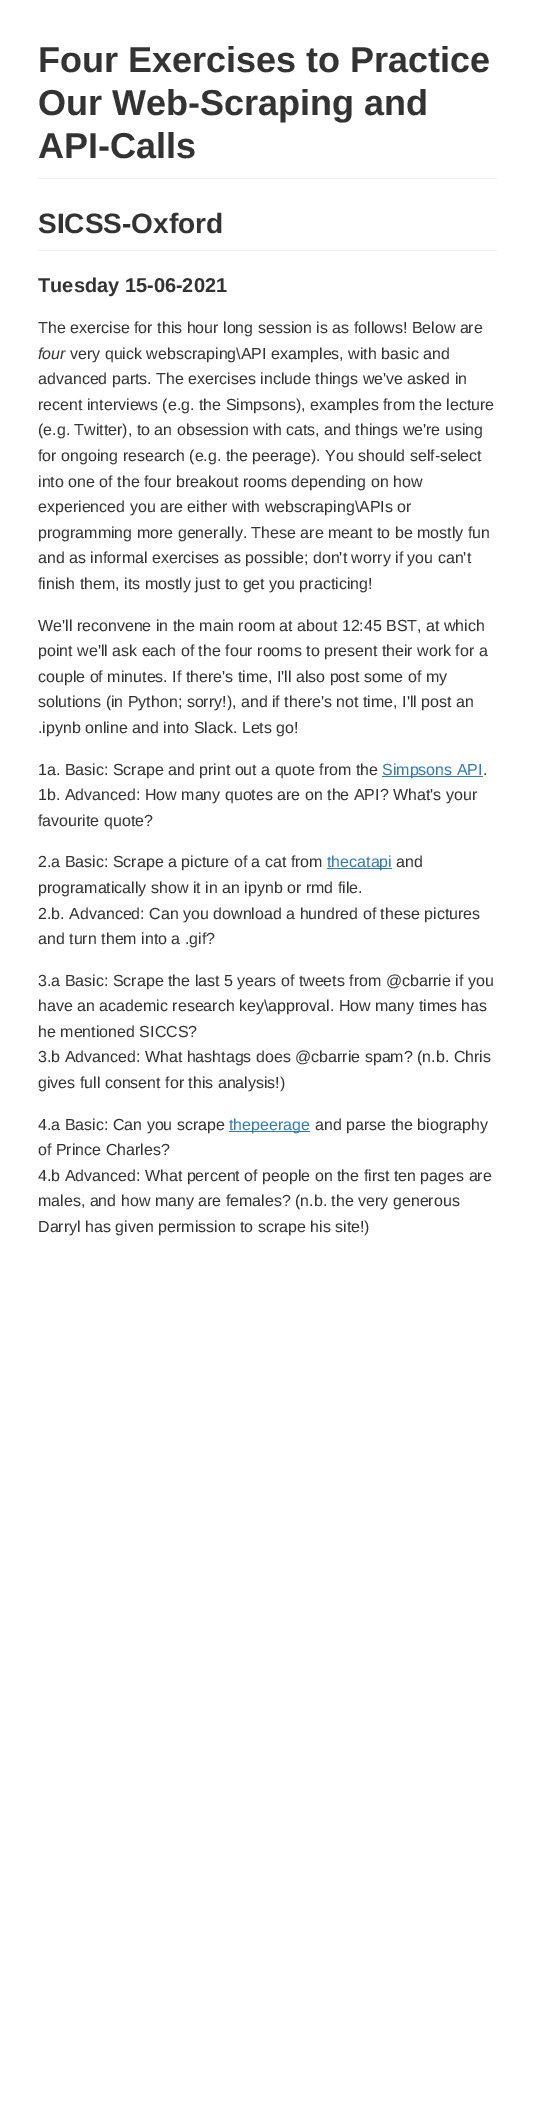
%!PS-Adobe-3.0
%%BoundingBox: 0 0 535 2101
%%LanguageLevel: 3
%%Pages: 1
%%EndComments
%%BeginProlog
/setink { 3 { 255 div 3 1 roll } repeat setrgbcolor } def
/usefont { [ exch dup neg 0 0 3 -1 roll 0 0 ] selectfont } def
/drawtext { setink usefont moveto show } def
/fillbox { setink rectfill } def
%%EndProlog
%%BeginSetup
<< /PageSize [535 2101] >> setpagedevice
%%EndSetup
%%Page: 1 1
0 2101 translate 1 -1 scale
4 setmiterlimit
0 0 535 2101 255 255 255 fillbox
38 178 459 1 238 238 238 fillbox
(Four Exercises to Practice) 38 72 /LiberationSans-Bold 36 51 51 51 drawtext
(Our Web-Scraping and) 38 115 /LiberationSans-Bold 36 51 51 51 drawtext
(API-Calls) 38 158 /LiberationSans-Bold 36 51 51 51 drawtext
38 250 459 1 238 238 238 fillbox
(SICSS-Oxford) 38 233 /LiberationSans-Bold 28 51 51 51 drawtext
(Tuesday 15-06-2021) 38 292 /LiberationSans-Bold 20 51 51 51 drawtext
(The exercise for this hour long session is as follows! Below are) 38 333 /LiberationSans-Regular 16 51 51 51 drawtext
(four) 38 359 /LiberationSans-Italic 16 51 51 51 drawtext
(very quick webscraping\\API examples, with basic and) 70 359 /LiberationSans-Regular 16 51 51 51 drawtext
(advanced parts. The exercises include things we've asked in) 38 384 /LiberationSans-Regular 16 51 51 51 drawtext
(recent interviews \(e.g. the Simpsons\), examples from the lecture) 38 410 /LiberationSans-Regular 16 51 51 51 drawtext
(\(e.g. Twitter\), to an obsession with cats, and things we're using) 38 435 /LiberationSans-Regular 16 51 51 51 drawtext
(for ongoing research \(e.g. the peerage\). You should self-select) 38 461 /LiberationSans-Regular 16 51 51 51 drawtext
(into one of the four breakout rooms depending on how) 38 487 /LiberationSans-Regular 16 51 51 51 drawtext
(experienced you are either with webscraping\\APIs or) 38 512 /LiberationSans-Regular 16 51 51 51 drawtext
(programming more generally. These are meant to be mostly fun) 38 538 /LiberationSans-Regular 16 51 51 51 drawtext
(and as informal exercises as possible; don't worry if you can't) 38 563 /LiberationSans-Regular 16 51 51 51 drawtext
(finish them, its mostly just to get you practicing!) 38 589 /LiberationSans-Regular 16 51 51 51 drawtext
(We'll reconvene in the main room at about 12:45 BST, at which) 38 631 /LiberationSans-Regular 16 51 51 51 drawtext
(point we'll ask each of the four rooms to present their work for a) 38 656 /LiberationSans-Regular 16 51 51 51 drawtext
(couple of minutes. If there's time, I'll also post some of my) 38 682 /LiberationSans-Regular 16 51 51 51 drawtext
(solutions \(in Python; sorry!\), and if there's not time, I'll post an) 38 707 /LiberationSans-Regular 16 51 51 51 drawtext
(.ipynb online and into Slack. Lets go!) 38 733 /LiberationSans-Regular 16 51 51 51 drawtext
(1a. Basic: Scrape and print out a quote from the) 38 775 /LiberationSans-Regular 16 51 51 51 drawtext
382 776 101 1 51 122 183 fillbox
(Simpsons API) 382 775 /LiberationSans-Regular 16 51 122 183 drawtext
(.) 483 775 /LiberationSans-Regular 16 51 51 51 drawtext
(1b. Advanced: How many quotes are on the API? What's your) 38 800 /LiberationSans-Regular 16 51 51 51 drawtext
(favourite quote?) 38 826 /LiberationSans-Regular 16 51 51 51 drawtext
(2.a Basic: Scrape a picture of a cat from) 38 867 /LiberationSans-Regular 16 51 51 51 drawtext
327 868 65 1 51 122 183 fillbox
(thecatapi) 327 867 /LiberationSans-Regular 16 51 122 183 drawtext
(and) 396 867 /LiberationSans-Regular 16 51 51 51 drawtext
(programatically show it in an ipynb or rmd file.) 38 893 /LiberationSans-Regular 16 51 51 51 drawtext
(2.b. Advanced: Can you download a hundred of these pictures) 38 919 /LiberationSans-Regular 16 51 51 51 drawtext
(and turn them into a .gif?) 38 944 /LiberationSans-Regular 16 51 51 51 drawtext
(3.a Basic: Scrape the last 5 years of tweets from @cbarrie if you) 38 986 /LiberationSans-Regular 16 51 51 51 drawtext
(have an academic research key\\approval. How many times has) 38 1011 /LiberationSans-Regular 16 51 51 51 drawtext
(he mentioned SICCS?) 38 1037 /LiberationSans-Regular 16 51 51 51 drawtext
(3.b Advanced: What hashtags does @cbarrie spam? \(n.b. Chris) 38 1062 /LiberationSans-Regular 16 51 51 51 drawtext
(gives full consent for this analysis!\)) 38 1088 /LiberationSans-Regular 16 51 51 51 drawtext
(4.a Basic: Can you scrape) 38 1130 /LiberationSans-Regular 16 51 51 51 drawtext
229 1131 81 1 51 122 183 fillbox
(thepeerage) 229 1130 /LiberationSans-Regular 16 51 122 183 drawtext
(and parse the biography) 315 1130 /LiberationSans-Regular 16 51 51 51 drawtext
(of Prince Charles?) 38 1155 /LiberationSans-Regular 16 51 51 51 drawtext
(4.b Advanced: What percent of people on the first ten pages are) 38 1181 /LiberationSans-Regular 16 51 51 51 drawtext
(males, and how many are females? \(n.b. the very generous) 38 1206 /LiberationSans-Regular 16 51 51 51 drawtext
(Darryl has given permission to scrape his site!\)) 38 1232 /LiberationSans-Regular 16 51 51 51 drawtext
showpage
%%EOF
